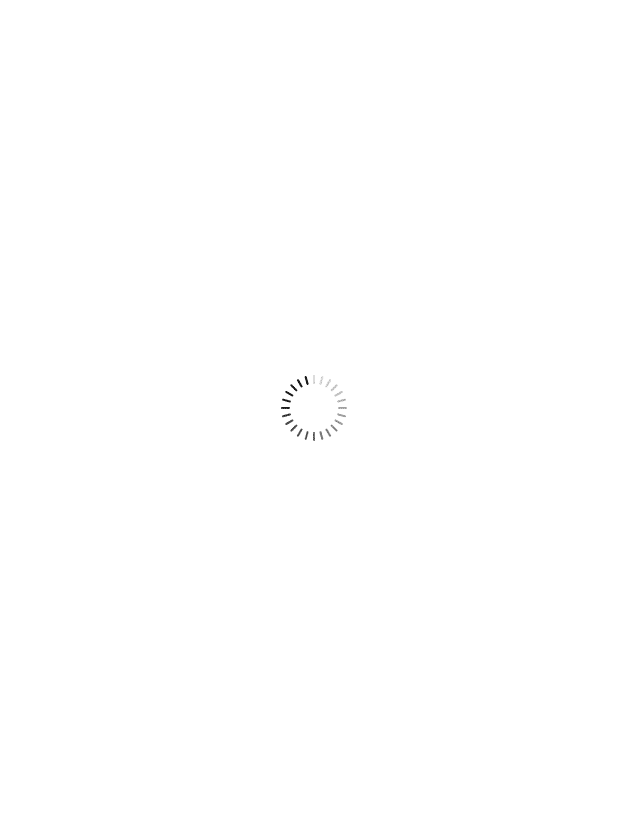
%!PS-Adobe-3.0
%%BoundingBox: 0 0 628 816
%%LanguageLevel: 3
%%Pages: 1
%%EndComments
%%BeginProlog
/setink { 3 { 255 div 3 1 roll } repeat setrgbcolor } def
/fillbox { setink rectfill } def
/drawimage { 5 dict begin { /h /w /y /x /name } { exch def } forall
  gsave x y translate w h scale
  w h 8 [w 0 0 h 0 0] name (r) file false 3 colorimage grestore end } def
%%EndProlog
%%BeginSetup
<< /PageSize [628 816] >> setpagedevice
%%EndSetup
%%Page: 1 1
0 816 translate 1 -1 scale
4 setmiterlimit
0 0 628 816 255 255 255 fillbox
(assets/img1.rgb) 281 375 66 66 drawimage
showpage
%%EOF
